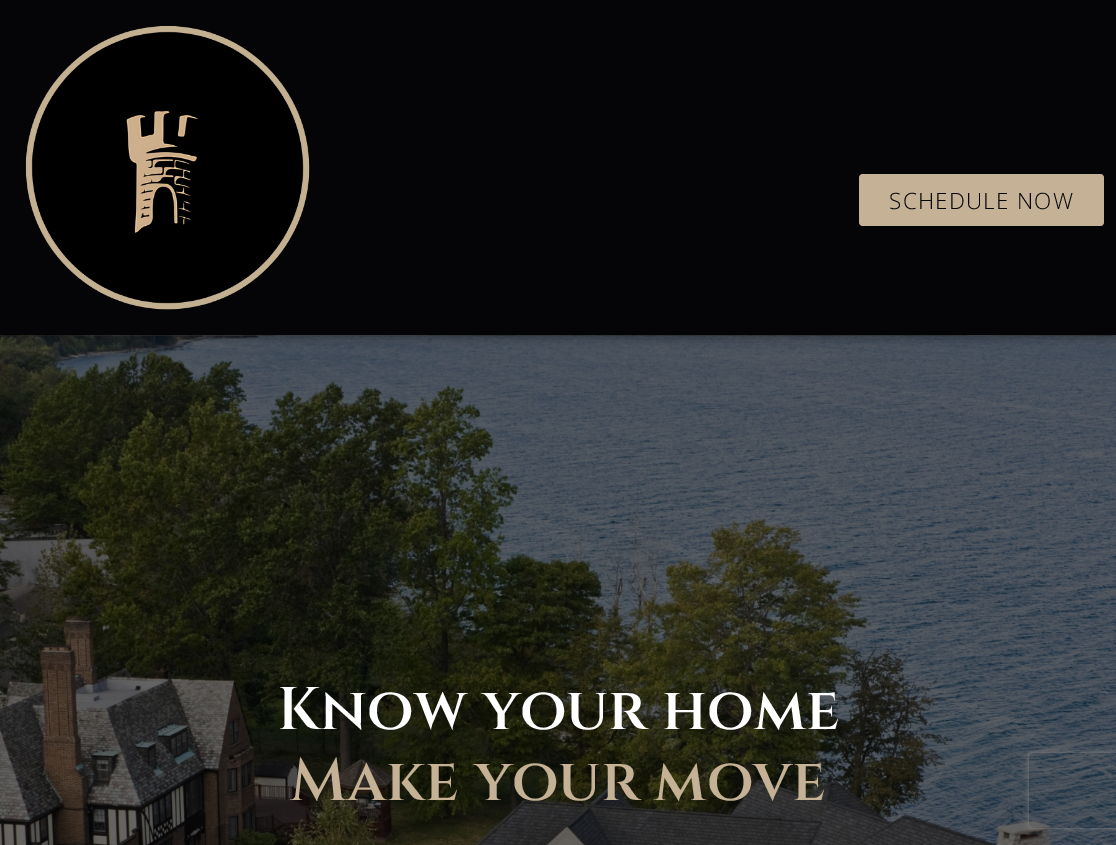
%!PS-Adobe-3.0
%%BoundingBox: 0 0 1116 845
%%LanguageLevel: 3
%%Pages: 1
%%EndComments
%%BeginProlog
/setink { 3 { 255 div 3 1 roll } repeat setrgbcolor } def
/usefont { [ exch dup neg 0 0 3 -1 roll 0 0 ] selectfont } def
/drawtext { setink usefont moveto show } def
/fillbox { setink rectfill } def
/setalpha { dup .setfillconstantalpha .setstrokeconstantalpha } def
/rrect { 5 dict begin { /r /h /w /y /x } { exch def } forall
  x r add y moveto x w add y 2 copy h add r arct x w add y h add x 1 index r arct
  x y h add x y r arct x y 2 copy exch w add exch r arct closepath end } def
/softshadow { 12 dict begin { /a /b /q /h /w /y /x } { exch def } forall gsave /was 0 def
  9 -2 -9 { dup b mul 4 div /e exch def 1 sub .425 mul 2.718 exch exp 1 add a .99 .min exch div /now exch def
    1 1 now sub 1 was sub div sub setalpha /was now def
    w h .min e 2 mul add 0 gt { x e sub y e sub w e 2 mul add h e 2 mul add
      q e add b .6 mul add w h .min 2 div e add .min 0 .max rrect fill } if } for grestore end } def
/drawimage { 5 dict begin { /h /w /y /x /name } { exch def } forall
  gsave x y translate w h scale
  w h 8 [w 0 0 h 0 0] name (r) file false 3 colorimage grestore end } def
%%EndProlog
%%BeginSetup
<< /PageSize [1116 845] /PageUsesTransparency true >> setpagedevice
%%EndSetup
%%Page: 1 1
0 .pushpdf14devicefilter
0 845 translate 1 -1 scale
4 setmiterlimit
0 0 1116 845 255 255 255 fillbox
(assets/img2.rgb) 0 335 1116 510 drawimage
0 0 0 setink
0 0 1116 335 0 6 0.5 softshadow
0 0 1116 335 5 5 7 fillbox
(assets/img1.rgb) 25 25 285 285 drawimage
197 177 149 setink
859 174 245 52 4 rrect fill
/OpenSans-Light 22.5 usefont
5 5 7 setink
889 209 moveto 1.25 0 (SCHEDULE NOW) ashow
(Know your home) 277 729 /Cinzel-SemiBold 60 255 255 255 drawtext
(Make your move) 290 800 /Cinzel-SemiBold 60 197 177 149 drawtext
gsave
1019 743 moveto 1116 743 lineto 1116 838 lineto 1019 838 lineto closepath 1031.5 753 moveto 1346.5 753 lineto 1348 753 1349 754 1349 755.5 curveto 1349 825.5 lineto 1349 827 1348 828 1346.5 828 curveto 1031.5 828 lineto 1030 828 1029 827 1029 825.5 curveto 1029 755.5 lineto 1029 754 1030 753 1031.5 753 curveto closepath eoclip newpath
128 128 128 setink
1029 753 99 75 2.5 3 1 softshadow
grestore
.poppdf14devicefilter showpage
%%EOF
